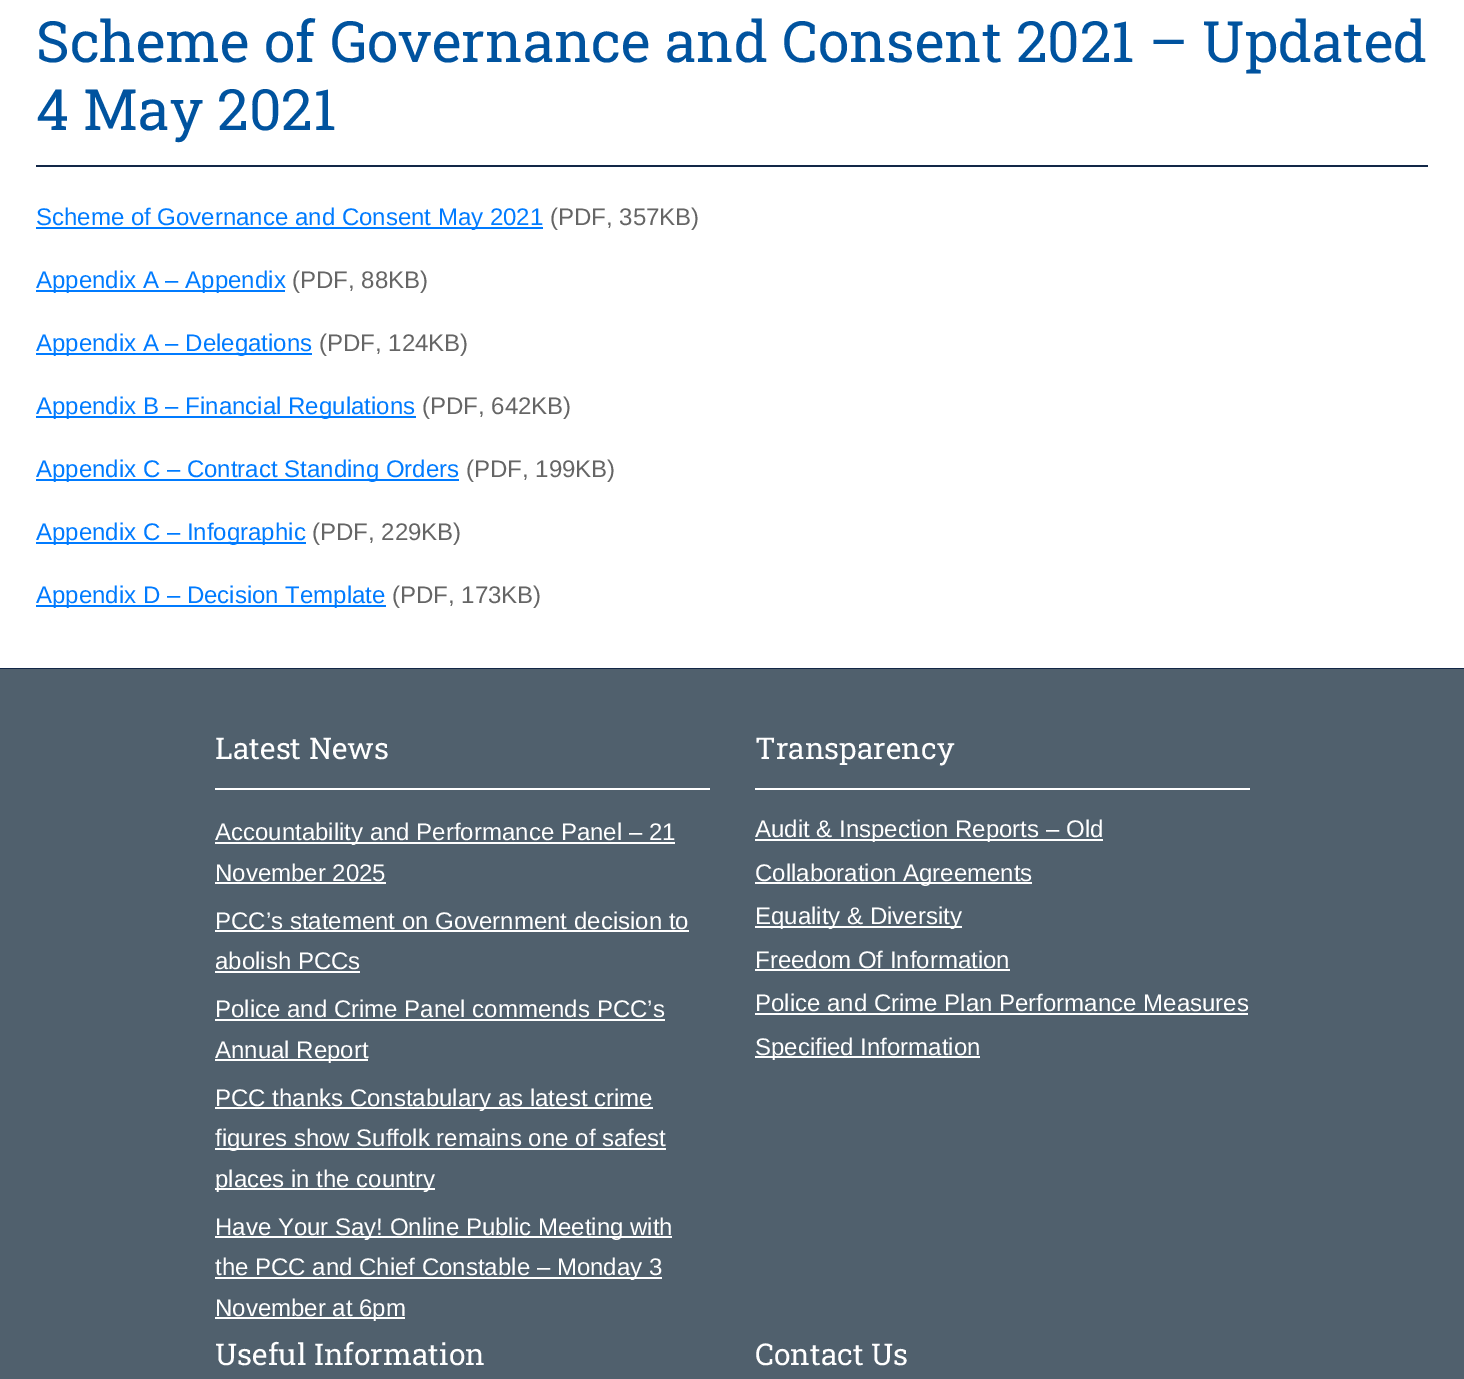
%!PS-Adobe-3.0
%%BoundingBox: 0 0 1464 1379
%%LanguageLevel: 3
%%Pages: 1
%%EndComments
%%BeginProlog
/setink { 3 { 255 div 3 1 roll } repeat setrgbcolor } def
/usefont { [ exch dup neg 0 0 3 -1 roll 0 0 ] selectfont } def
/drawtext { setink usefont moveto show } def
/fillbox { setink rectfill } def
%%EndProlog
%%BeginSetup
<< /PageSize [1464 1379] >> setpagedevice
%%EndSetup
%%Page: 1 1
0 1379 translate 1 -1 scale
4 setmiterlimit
0 0 1464 1379 255 255 255 fillbox
36 165 1392 2 18 39 71 fillbox
(Scheme of Governance and Consent 2021 – Updated) 36 62 /RobotoSlab-Regular 57 0 83 159 drawtext
(4 May 2021) 36 130 /RobotoSlab-Regular 57 0 83 159 drawtext
36 227 507 2 0 123 255 fillbox
(Scheme of Governance and Consent May 2021) 36 225 /LiberationSans-Regular 24 0 123 255 drawtext
(\(PDF, 357KB\)) 550 225 /LiberationSans-Regular 24 101 101 101 drawtext
36 290 249 2 0 123 255 fillbox
(Appendix A – Appendix) 36 288 /LiberationSans-Regular 24 0 123 255 drawtext
(\(PDF, 88KB\)) 292 288 /LiberationSans-Regular 24 101 101 101 drawtext
36 353 276 2 0 123 255 fillbox
(Appendix A – Delegations) 36 351 /LiberationSans-Regular 24 0 123 255 drawtext
(\(PDF, 124KB\)) 319 351 /LiberationSans-Regular 24 101 101 101 drawtext
36 416 380 2 0 123 255 fillbox
(Appendix B – Financial Regulations) 36 414 /LiberationSans-Regular 24 0 123 255 drawtext
(\(PDF, 642KB\)) 422 414 /LiberationSans-Regular 24 101 101 101 drawtext
36 479 423 2 0 123 255 fillbox
(Appendix C – Contract Standing Orders) 36 477 /LiberationSans-Regular 24 0 123 255 drawtext
(\(PDF, 199KB\)) 466 477 /LiberationSans-Regular 24 101 101 101 drawtext
36 542 270 2 0 123 255 fillbox
(Appendix C – Infographic) 36 540 /LiberationSans-Regular 24 0 123 255 drawtext
(\(PDF, 229KB\)) 312 540 /LiberationSans-Regular 24 101 101 101 drawtext
36 605 350 2 0 123 255 fillbox
(Appendix D – Decision Template) 36 603 /LiberationSans-Regular 24 0 123 255 drawtext
(\(PDF, 173KB\)) 392 603 /LiberationSans-Regular 24 101 101 101 drawtext
0 668 1464 1 18 39 71 fillbox
0 669 1464 710 80 96 109 fillbox
215 788 495 2 255 255 255 fillbox
(Latest News) 215 759 /RobotoSlab-Regular 30 255 255 255 drawtext
215 842 460 2 255 255 255 fillbox
(Accountability and Performance Panel – 21) 215 840 /LiberationSans-Regular 24 255 255 255 drawtext
(November 2025) 215 881 /LiberationSans-Regular 24 255 255 255 drawtext
215 882 171 2 255 255 255 fillbox
(PCC’s statement on Government decision to) 215 929 /LiberationSans-Regular 24 255 255 255 drawtext
215 930 474 2 255 255 255 fillbox
(abolish PCCs) 215 969 /LiberationSans-Regular 24 255 255 255 drawtext
215 971 145 2 255 255 255 fillbox
(Police and Crime Panel commends PCC’s) 215 1017 /LiberationSans-Regular 24 255 255 255 drawtext
215 1019 450 2 255 255 255 fillbox
215 1059 153 2 255 255 255 fillbox
(Annual Report) 215 1058 /LiberationSans-Regular 24 255 255 255 drawtext
215 1107 438 2 255 255 255 fillbox
(PCC thanks Constabulary as latest crime) 215 1106 /LiberationSans-Regular 24 255 255 255 drawtext
215 1148 451 2 255 255 255 fillbox
(figures show Suffolk remains one of safest) 215 1146 /LiberationSans-Regular 24 255 255 255 drawtext
215 1188 220 2 255 255 255 fillbox
(places in the country) 215 1187 /LiberationSans-Regular 24 255 255 255 drawtext
215 1236 457 2 255 255 255 fillbox
(Have Your Say! Online Public Meeting with) 215 1235 /LiberationSans-Regular 24 255 255 255 drawtext
215 1277 447 2 255 255 255 fillbox
(the PCC and Chief Constable – Monday 3) 215 1275 /LiberationSans-Regular 24 255 255 255 drawtext
215 1317 190 2 255 255 255 fillbox
(November at 6pm) 215 1316 /LiberationSans-Regular 24 255 255 255 drawtext
755 788 495 2 255 255 255 fillbox
(Transparency) 755 759 /RobotoSlab-Regular 30 255 255 255 drawtext
755 839 348 2 255 255 255 fillbox
(Audit & Inspection Reports – Old) 755 837 /LiberationSans-Regular 24 255 255 255 drawtext
755 882 277 2 255 255 255 fillbox
(Collaboration Agreements) 755 881 /LiberationSans-Regular 24 255 255 255 drawtext
755 926 207 2 255 255 255 fillbox
(Equality & Diversity) 755 924 /LiberationSans-Regular 24 255 255 255 drawtext
(Freedom Of Information) 755 968 /LiberationSans-Regular 24 255 255 255 drawtext
755 969 255 2 255 255 255 fillbox
(Police and Crime Plan Performance Measures) 755 1011 /LiberationSans-Regular 24 255 255 255 drawtext
755 1013 493 2 255 255 255 fillbox
755 1056 225 2 255 255 255 fillbox
(Specified Information) 755 1055 /LiberationSans-Regular 24 255 255 255 drawtext
(Useful Information) 215 1365 /RobotoSlab-Regular 30 255 255 255 drawtext
(Contact Us) 755 1365 /RobotoSlab-Regular 30 255 255 255 drawtext
showpage
%%EOF
